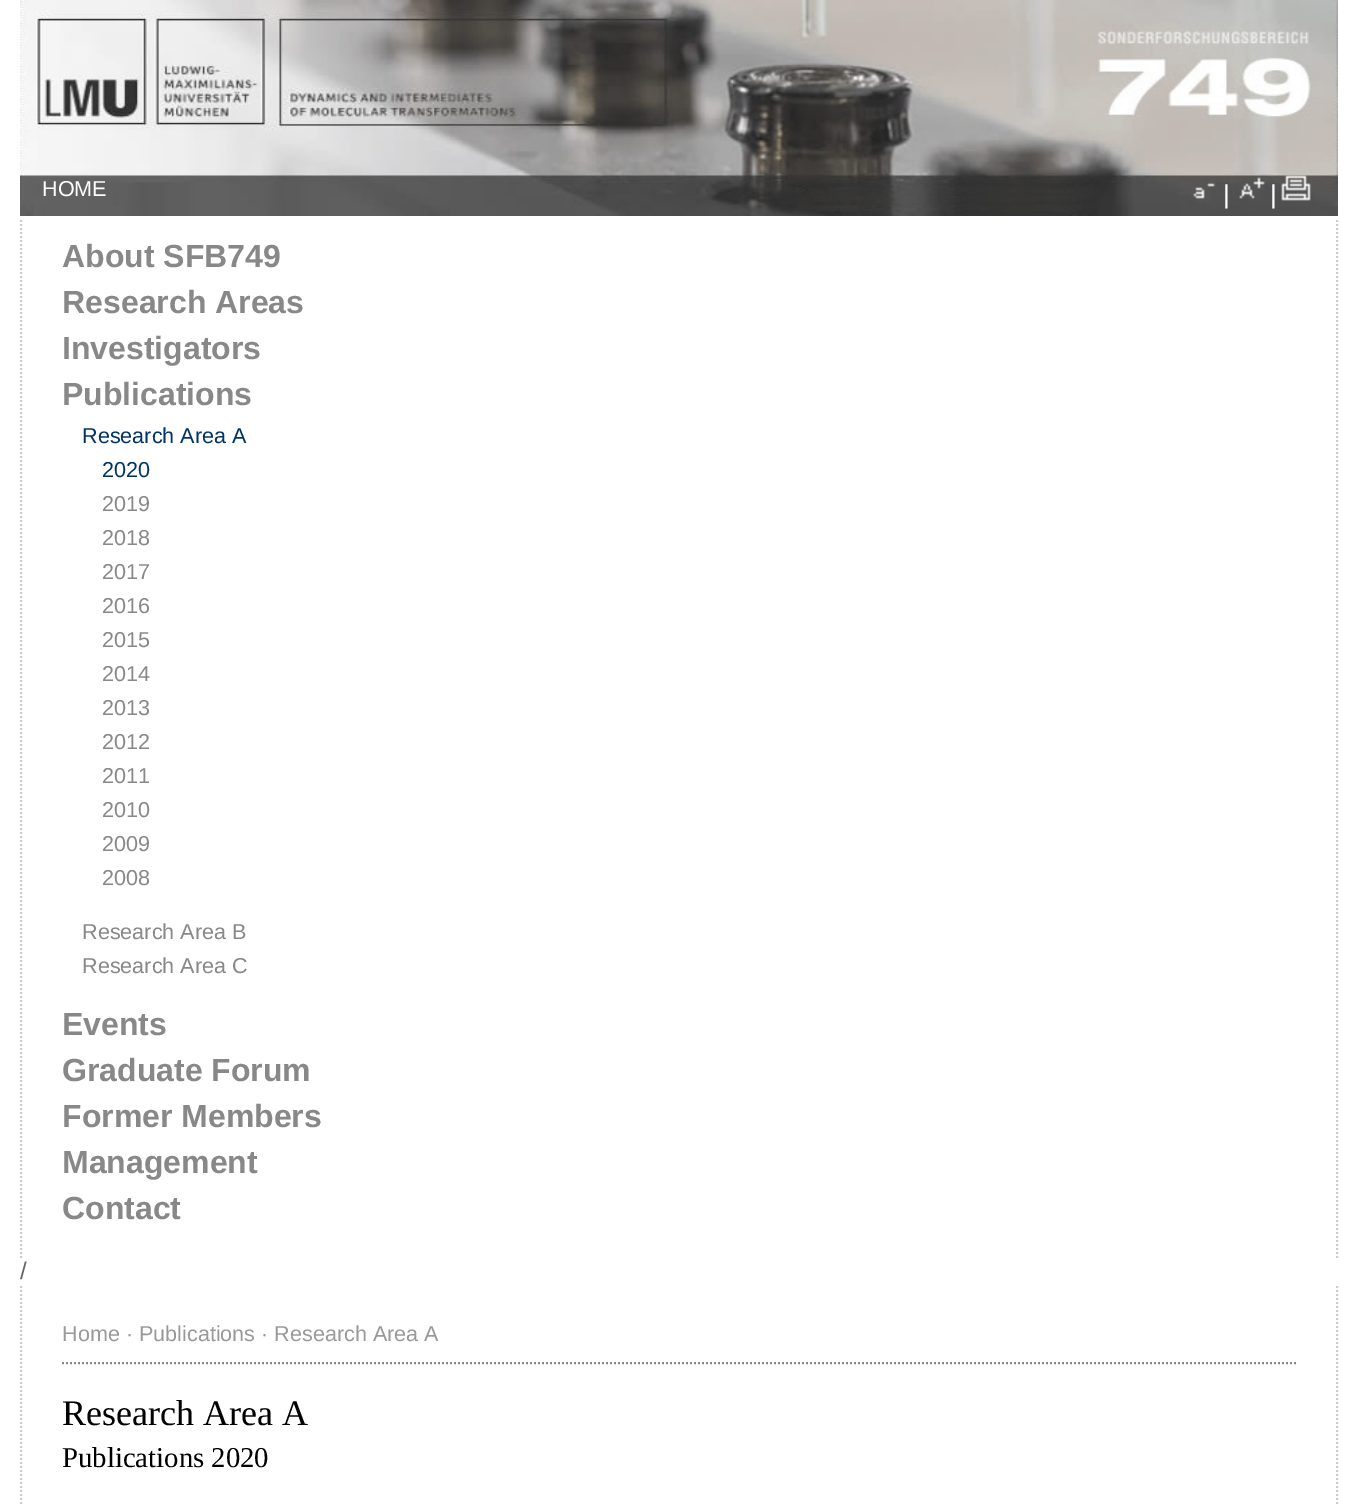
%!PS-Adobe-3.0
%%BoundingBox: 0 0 1358 1504
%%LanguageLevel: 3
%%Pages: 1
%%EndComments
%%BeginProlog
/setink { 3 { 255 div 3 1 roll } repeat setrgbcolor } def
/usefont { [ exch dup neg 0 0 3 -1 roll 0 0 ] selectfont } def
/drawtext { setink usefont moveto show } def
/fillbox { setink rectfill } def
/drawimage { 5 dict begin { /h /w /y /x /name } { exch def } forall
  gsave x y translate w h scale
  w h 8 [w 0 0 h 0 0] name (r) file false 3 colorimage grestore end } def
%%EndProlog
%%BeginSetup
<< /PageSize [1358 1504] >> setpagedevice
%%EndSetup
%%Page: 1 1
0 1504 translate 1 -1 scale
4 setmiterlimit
0 0 1358 1504 255 255 255 fillbox
(assets/img1.rgb) 20 0 1318 216 drawimage
(HOME) 42 196 /LiberationSans-Regular 21.6 255 255 255 drawtext
(assets/img2.rgb) 1193 183 22 16 drawimage
(|) 1223 203 /LiberationSans-Regular 26 255 255 255 drawtext
(assets/img3.rgb) 1239 177 26 22 drawimage
(|) 1270 203 /LiberationSans-Regular 26 255 255 255 drawtext
(assets/img4.rgb) 1281 175 30 26 drawimage
204 204 204 setink
2 setlinewidth
[2 2] 0 setdash
1337 220 moveto 1337 1258 lineto stroke
21 220 moveto 21 1258 lineto stroke
(About SFB749) 62 267 /LiberationSans-Bold 32 136 136 136 drawtext
(Research Areas) 62 313 /LiberationSans-Bold 32 136 136 136 drawtext
(Investigators) 62 359 /LiberationSans-Bold 32 136 136 136 drawtext
(Publications) 62 405 /LiberationSans-Bold 32 136 136 136 drawtext
(Research Area A) 82 443 /LiberationSans-Regular 21.6 0 51 102 drawtext
(2020) 102 477 /LiberationSans-Regular 21.6 0 51 102 drawtext
(2019) 102 511 /LiberationSans-Regular 21.6 136 136 136 drawtext
(2018) 102 545 /LiberationSans-Regular 21.6 136 136 136 drawtext
(2017) 102 579 /LiberationSans-Regular 21.6 136 136 136 drawtext
(2016) 102 613 /LiberationSans-Regular 21.6 136 136 136 drawtext
(2015) 102 647 /LiberationSans-Regular 21.6 136 136 136 drawtext
(2014) 102 681 /LiberationSans-Regular 21.6 136 136 136 drawtext
(2013) 102 715 /LiberationSans-Regular 21.6 136 136 136 drawtext
(2012) 102 749 /LiberationSans-Regular 21.6 136 136 136 drawtext
(2011) 102 783 /LiberationSans-Regular 21.6 136 136 136 drawtext
(2010) 102 817 /LiberationSans-Regular 21.6 136 136 136 drawtext
(2009) 102 851 /LiberationSans-Regular 21.6 136 136 136 drawtext
(2008) 102 885 /LiberationSans-Regular 21.6 136 136 136 drawtext
(Research Area B) 82 939 /LiberationSans-Regular 21.6 136 136 136 drawtext
(Research Area C) 82 973 /LiberationSans-Regular 21.6 136 136 136 drawtext
(Events) 62 1035 /LiberationSans-Bold 32 136 136 136 drawtext
(Graduate Forum) 62 1081 /LiberationSans-Bold 32 136 136 136 drawtext
(Former Members) 62 1127 /LiberationSans-Bold 32 136 136 136 drawtext
(Management) 62 1173 /LiberationSans-Bold 32 136 136 136 drawtext
(Contact) 62 1219 /LiberationSans-Bold 32 136 136 136 drawtext
(/) 20 1279 /LiberationSans-Regular 24 102 102 102 drawtext
204 204 204 setink
1337 1286 moveto 1337 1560 lineto stroke
21 1286 moveto 21 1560 lineto stroke
136 136 136 setink
62 1363 moveto 1296 1363 lineto stroke
(Home · Publications · Research Area A) 62 1341 /LiberationSans-Regular 21.6 153 153 153 drawtext
(Research Area A) 62 1425 /LiberationSerif-Regular 36 0 0 0 drawtext
(Publications 2020) 62 1467 /LiberationSerif-Regular 28.75 0 0 0 drawtext
showpage
%%EOF
